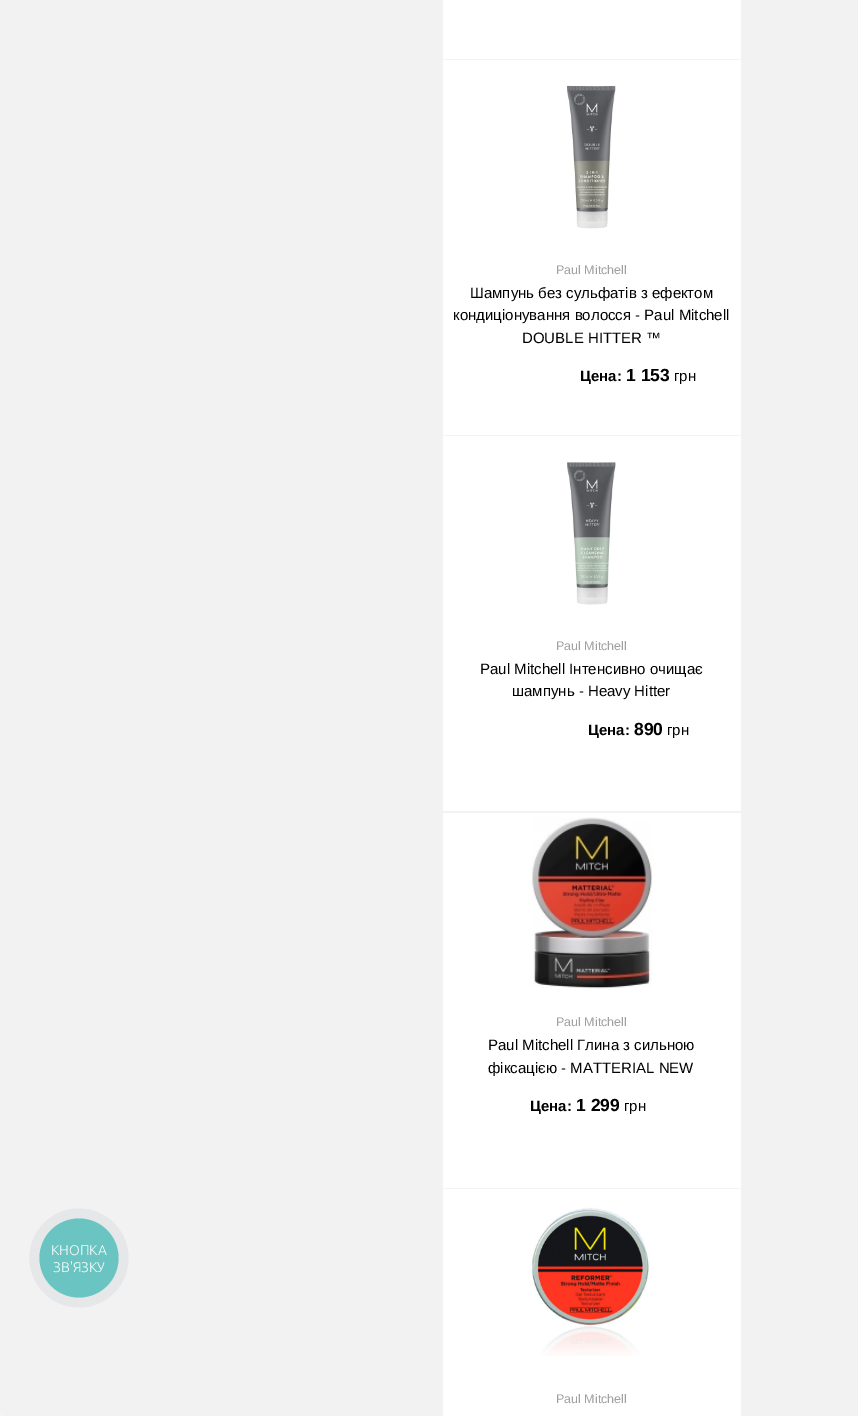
%!PS-Adobe-3.0
%%BoundingBox: 0 0 858 1416
%%LanguageLevel: 3
%%Pages: 1
%%EndComments
%%BeginProlog
/setink { 3 { 255 div 3 1 roll } repeat setrgbcolor } def
/usefont { [ exch dup neg 0 0 3 -1 roll 0 0 ] selectfont } def
/drawtext { setink usefont moveto show } def
/fillbox { setink rectfill } def
/disc { newpath 0 360 arc closepath } def
/drawimage { 5 dict begin { /h /w /y /x /name } { exch def } forall
  gsave x y translate w h scale
  w h 8 [w 0 0 h 0 0] name (r) file false 3 colorimage grestore end } def
%%EndProlog
%%BeginSetup
<< /PageSize [858 1416] >> setpagedevice
%%EndSetup
%%Page: 1 1
0 1416 translate 1 -1 scale
4 setmiterlimit
0 0 858 1416 242 242 242 fillbox
230 231 233 setink
79 1258 49.5 disc fill
106 196 193 setink
79 1258 39.5 disc fill
(КНОПКА) 51 1255 /Ubuntu-Light 14 255 255 255 drawtext
(ЗВ'ЯЗКУ) 53 1272 /Ubuntu-Light 14 255 255 255 drawtext
443 0 298 59 255 255 255 fillbox
443 60 298 375 255 255 255 fillbox
(assets/img1.rgb) 567 85 49 144 drawimage
(Paul Mitchell) 556 274 /LiberationSans-Regular 12.5 160 160 160 drawtext
(Шампунь без сульфатів з ефектом) 470 298 /LiberationSans-Regular 15 0 0 0 drawtext
(кондиціонування волосся - Paul Mitchell) 453 320 /LiberationSans-Regular 15 0 0 0 drawtext
(DOUBLE HITTER ™) 522 343 /LiberationSans-Regular 15 0 0 0 drawtext
(Цена:) 580 381 /LiberationSans-Bold 15 0 0 0 drawtext
(1 153) 626 381 /LiberationSans-Bold 17.5 0 0 0 drawtext
(грн) 674 381 /LiberationSans-Regular 15 0 0 0 drawtext
443 436 298 375 255 255 255 fillbox
(assets/img2.rgb) 567 462 49 143 drawimage
(Paul Mitchell) 556 650 /LiberationSans-Regular 12.5 160 160 160 drawtext
(Paul Mitchell Інтенсивно очищає) 480 674 /LiberationSans-Regular 15 0 0 0 drawtext
(шампунь - Heavy Hitter) 512 696 /LiberationSans-Regular 15 0 0 0 drawtext
(Цена:) 588 735 /LiberationSans-Bold 15 0 0 0 drawtext
(890) 634 735 /LiberationSans-Bold 17.5 0 0 0 drawtext
(грн) 667 735 /LiberationSans-Regular 15 0 0 0 drawtext
443 813 298 375 255 255 255 fillbox
(assets/img3.rgb) 531 817 122 172 drawimage
(Paul Mitchell) 556 1026 /LiberationSans-Regular 12.5 160 160 160 drawtext
(Paul Mitchell Глина з сильною) 488 1050 /LiberationSans-Regular 15 0 0 0 drawtext
(фіксацією - MATTERIAL NEW) 488 1073 /LiberationSans-Regular 15 0 0 0 drawtext
(Цена:) 530 1111 /LiberationSans-Bold 15 0 0 0 drawtext
(1 299) 576 1111 /LiberationSans-Bold 17.5 0 0 0 drawtext
(грн) 624 1111 /LiberationSans-Regular 15 0 0 0 drawtext
443 1189 298 227 255 255 255 fillbox
(assets/img4.rgb) 532 1207 118 149 drawimage
(Paul Mitchell) 556 1403 /LiberationSans-Regular 12.5 160 160 160 drawtext
0 1414 3 2 245 245 245 fillbox
showpage
%%EOF
